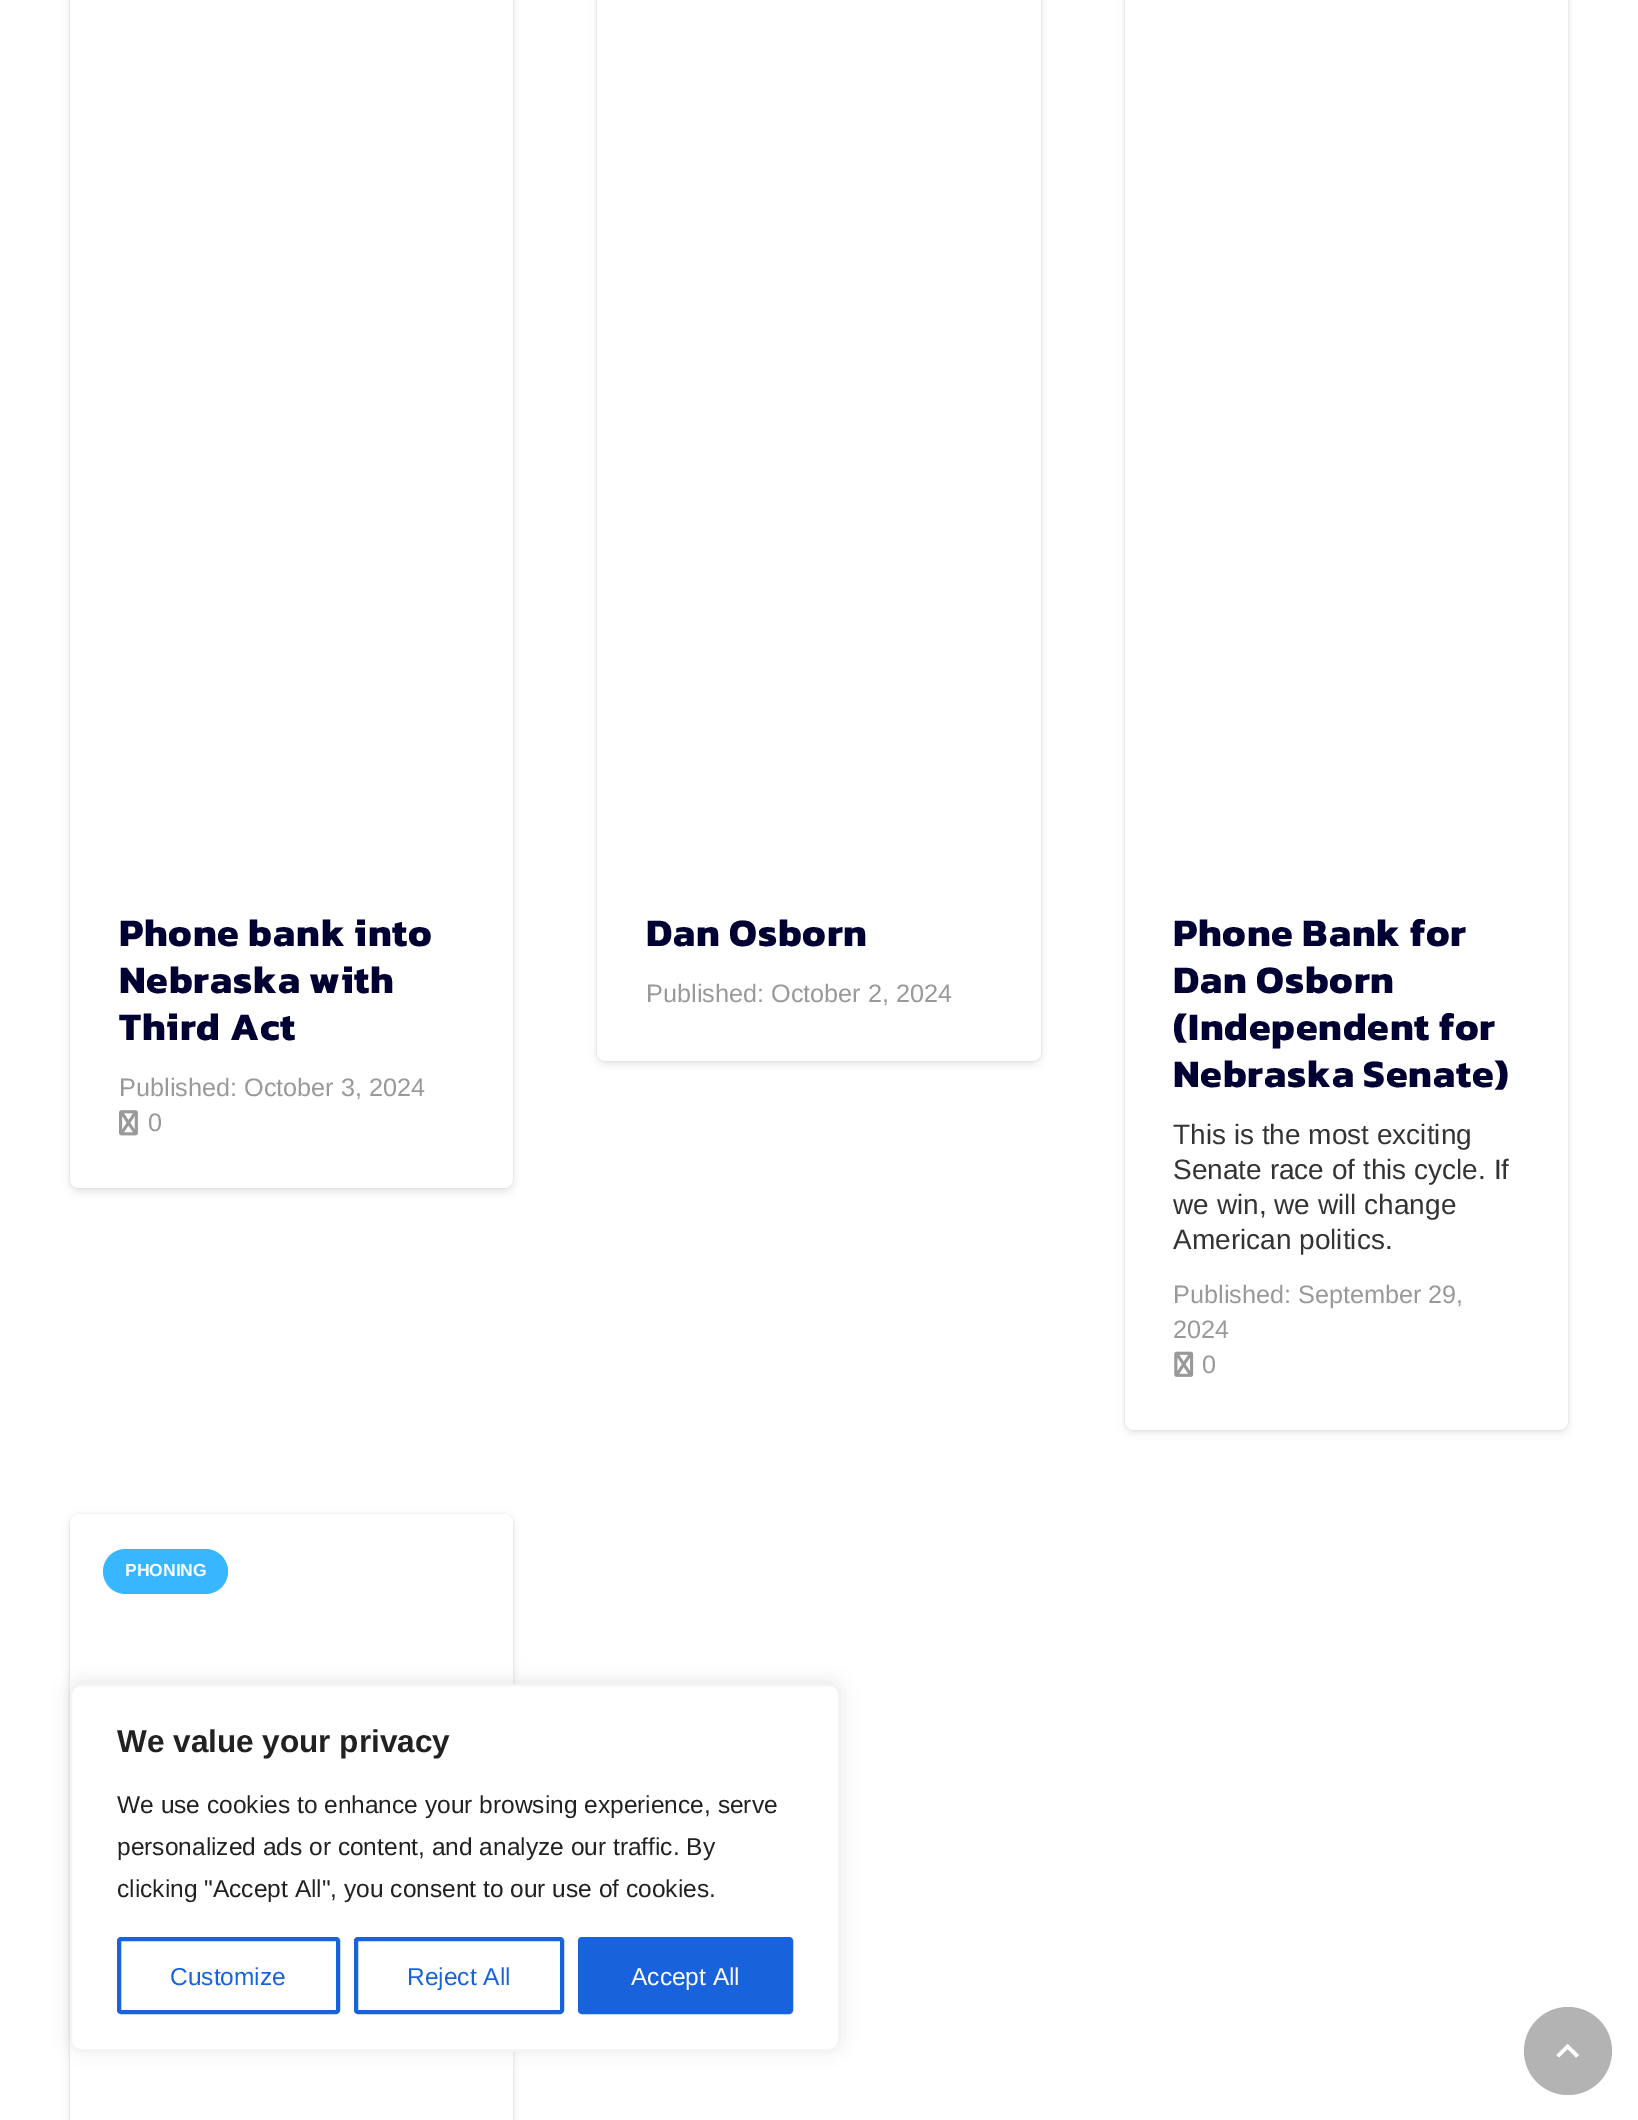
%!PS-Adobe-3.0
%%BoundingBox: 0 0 1638 2120
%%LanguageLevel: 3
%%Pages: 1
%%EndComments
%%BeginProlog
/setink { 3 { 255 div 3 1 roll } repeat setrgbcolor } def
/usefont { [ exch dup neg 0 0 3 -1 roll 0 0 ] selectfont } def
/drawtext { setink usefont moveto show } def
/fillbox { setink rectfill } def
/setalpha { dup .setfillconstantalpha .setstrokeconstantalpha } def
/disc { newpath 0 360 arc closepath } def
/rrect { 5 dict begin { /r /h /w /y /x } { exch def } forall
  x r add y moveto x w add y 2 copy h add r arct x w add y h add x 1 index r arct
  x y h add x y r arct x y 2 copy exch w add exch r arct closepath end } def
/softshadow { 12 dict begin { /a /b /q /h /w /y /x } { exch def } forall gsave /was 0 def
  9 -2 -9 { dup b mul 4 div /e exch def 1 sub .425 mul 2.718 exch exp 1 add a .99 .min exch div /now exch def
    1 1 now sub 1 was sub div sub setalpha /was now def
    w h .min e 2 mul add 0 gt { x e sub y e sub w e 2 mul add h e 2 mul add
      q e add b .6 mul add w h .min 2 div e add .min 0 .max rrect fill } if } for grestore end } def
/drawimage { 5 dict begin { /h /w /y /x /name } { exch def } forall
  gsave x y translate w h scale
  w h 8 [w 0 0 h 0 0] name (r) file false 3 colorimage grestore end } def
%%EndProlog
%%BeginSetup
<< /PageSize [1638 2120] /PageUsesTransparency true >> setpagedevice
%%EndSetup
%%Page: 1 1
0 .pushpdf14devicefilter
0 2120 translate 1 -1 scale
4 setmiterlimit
0 0 1638 2120 255 255 255 fillbox
0 0 0 setink
70 -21 443 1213 9 4 0.1 softshadow
70 -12 443 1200 9 1 0.1 softshadow
255 255 255 setink
70 -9 443 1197 9 rrect fill
/Kanit-Bold 39.25 usefont
0 0 51 setink
119 946 moveto 0.75 0 (Phone bank into) ashow
119 993 moveto 0.75 0 (Nebraska with) ashow
119 1040 moveto 0.75 0 (Third Act) ashow
(Published: October 3, 2024) 119 1096 /LiberationSans-Regular 25.25 153 153 153 drawtext
(assets/img1.rgb) 119 1110 19 26 drawimage
(0) 148 1131 /LiberationSans-Regular 25.25 153 153 153 drawtext
0 0 0 setink
597 -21 444 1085 9 4 0.1 softshadow
597 -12 444 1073 9 1 0.1 softshadow
255 255 255 setink
597 -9 444 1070 9 rrect fill
/Kanit-Bold 39.25 usefont
0 0 51 setink
646 946 moveto 0.75 0 (Dan Osborn) ashow
(Published: October 2, 2024) 646 1002 /LiberationSans-Regular 25.25 153 153 153 drawtext
0 0 0 setink
1125 -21 443 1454 9 4 0.1 softshadow
1125 -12 443 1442 9 1 0.1 softshadow
255 255 255 setink
1125 -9 443 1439 9 rrect fill
/Kanit-Bold 39.25 usefont
0 0 51 setink
1173 946 moveto 0.75 0 (Phone Bank for) ashow
1173 993 moveto 0.75 0 (Dan Osborn) ashow
1173 1040 moveto 0.75 0 (\(Independent for) ashow
1173 1087 moveto 0.75 0 (Nebraska Senate\)) ashow
(This is the most exciting) 1173 1144 /LiberationSans-Regular 28 51 51 51 drawtext
(Senate race of this cycle. If) 1173 1179 /LiberationSans-Regular 28 51 51 51 drawtext
(we win, we will change) 1173 1214 /LiberationSans-Regular 28 51 51 51 drawtext
(American politics.) 1173 1249 /LiberationSans-Regular 28 51 51 51 drawtext
(Published: September 29,) 1173 1303 /LiberationSans-Regular 25.25 153 153 153 drawtext
(2024) 1173 1338 /LiberationSans-Regular 25.25 153 153 153 drawtext
(assets/img2.rgb) 1174 1351 20 26 drawimage
(0) 1202 1373 /LiberationSans-Regular 25.25 153 153 153 drawtext
0 0 0 setink
70 1517 443 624 9 4 0.1 softshadow
70 1514 443 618 9 1 0.1 softshadow
255 255 255 setink
70 1514 443 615 9 rrect fill
56 182 255 setink
103 1549 125 45 22.5 rrect fill
(PHONING) 125 1576 /LiberationSans-Bold 17.5 255 255 255 drawtext
172 171 171 setink
70 1682 770 367 11 9 0.3 softshadow
255 255 255 setink
71 1685 768 365 10 rrect gsave fill grestore
244 244 244 setink
2 setlinewidth
stroke
(We value your privacy) 117 1752 /LiberationSans-Bold 31.5 33 33 33 drawtext
(We use cookies to enhance your browsing experience, serve) 117 1813 /LiberationSans-Regular 24.5 33 33 33 drawtext
(personalized ads or content, and analyze our traffic. By) 117 1855 /LiberationSans-Regular 24.5 33 33 33 drawtext
(clicking "Accept All", you consent to our use of cookies.) 117 1897 /LiberationSans-Regular 24.5 33 33 33 drawtext
24 99 220 setink
4 setlinewidth
119 1939 219 73 2 rrect stroke
(Customize) 170 1985 /LiberationSans-Regular 24.5 24 99 220 drawtext
356 1939 206 73 2 rrect stroke
(Reject All) 407 1985 /LiberationSans-Regular 24.5 24 99 220 drawtext
580 1939 211 73 2 rrect gsave fill grestore
stroke
(Accept All) 631 1985 /LiberationSans-Regular 24.5 255 255 255 drawtext
179 179 179 setink
1568 2051 44 disc fill
255 255 255 setink
1559 2057.5 moveto 1556.5 2055 lineto 1567.5 2044 lineto 1579 2055 lineto 1576 2057.5 lineto 1567.5 2049 lineto closepath fill
.poppdf14devicefilter showpage
%%EOF
